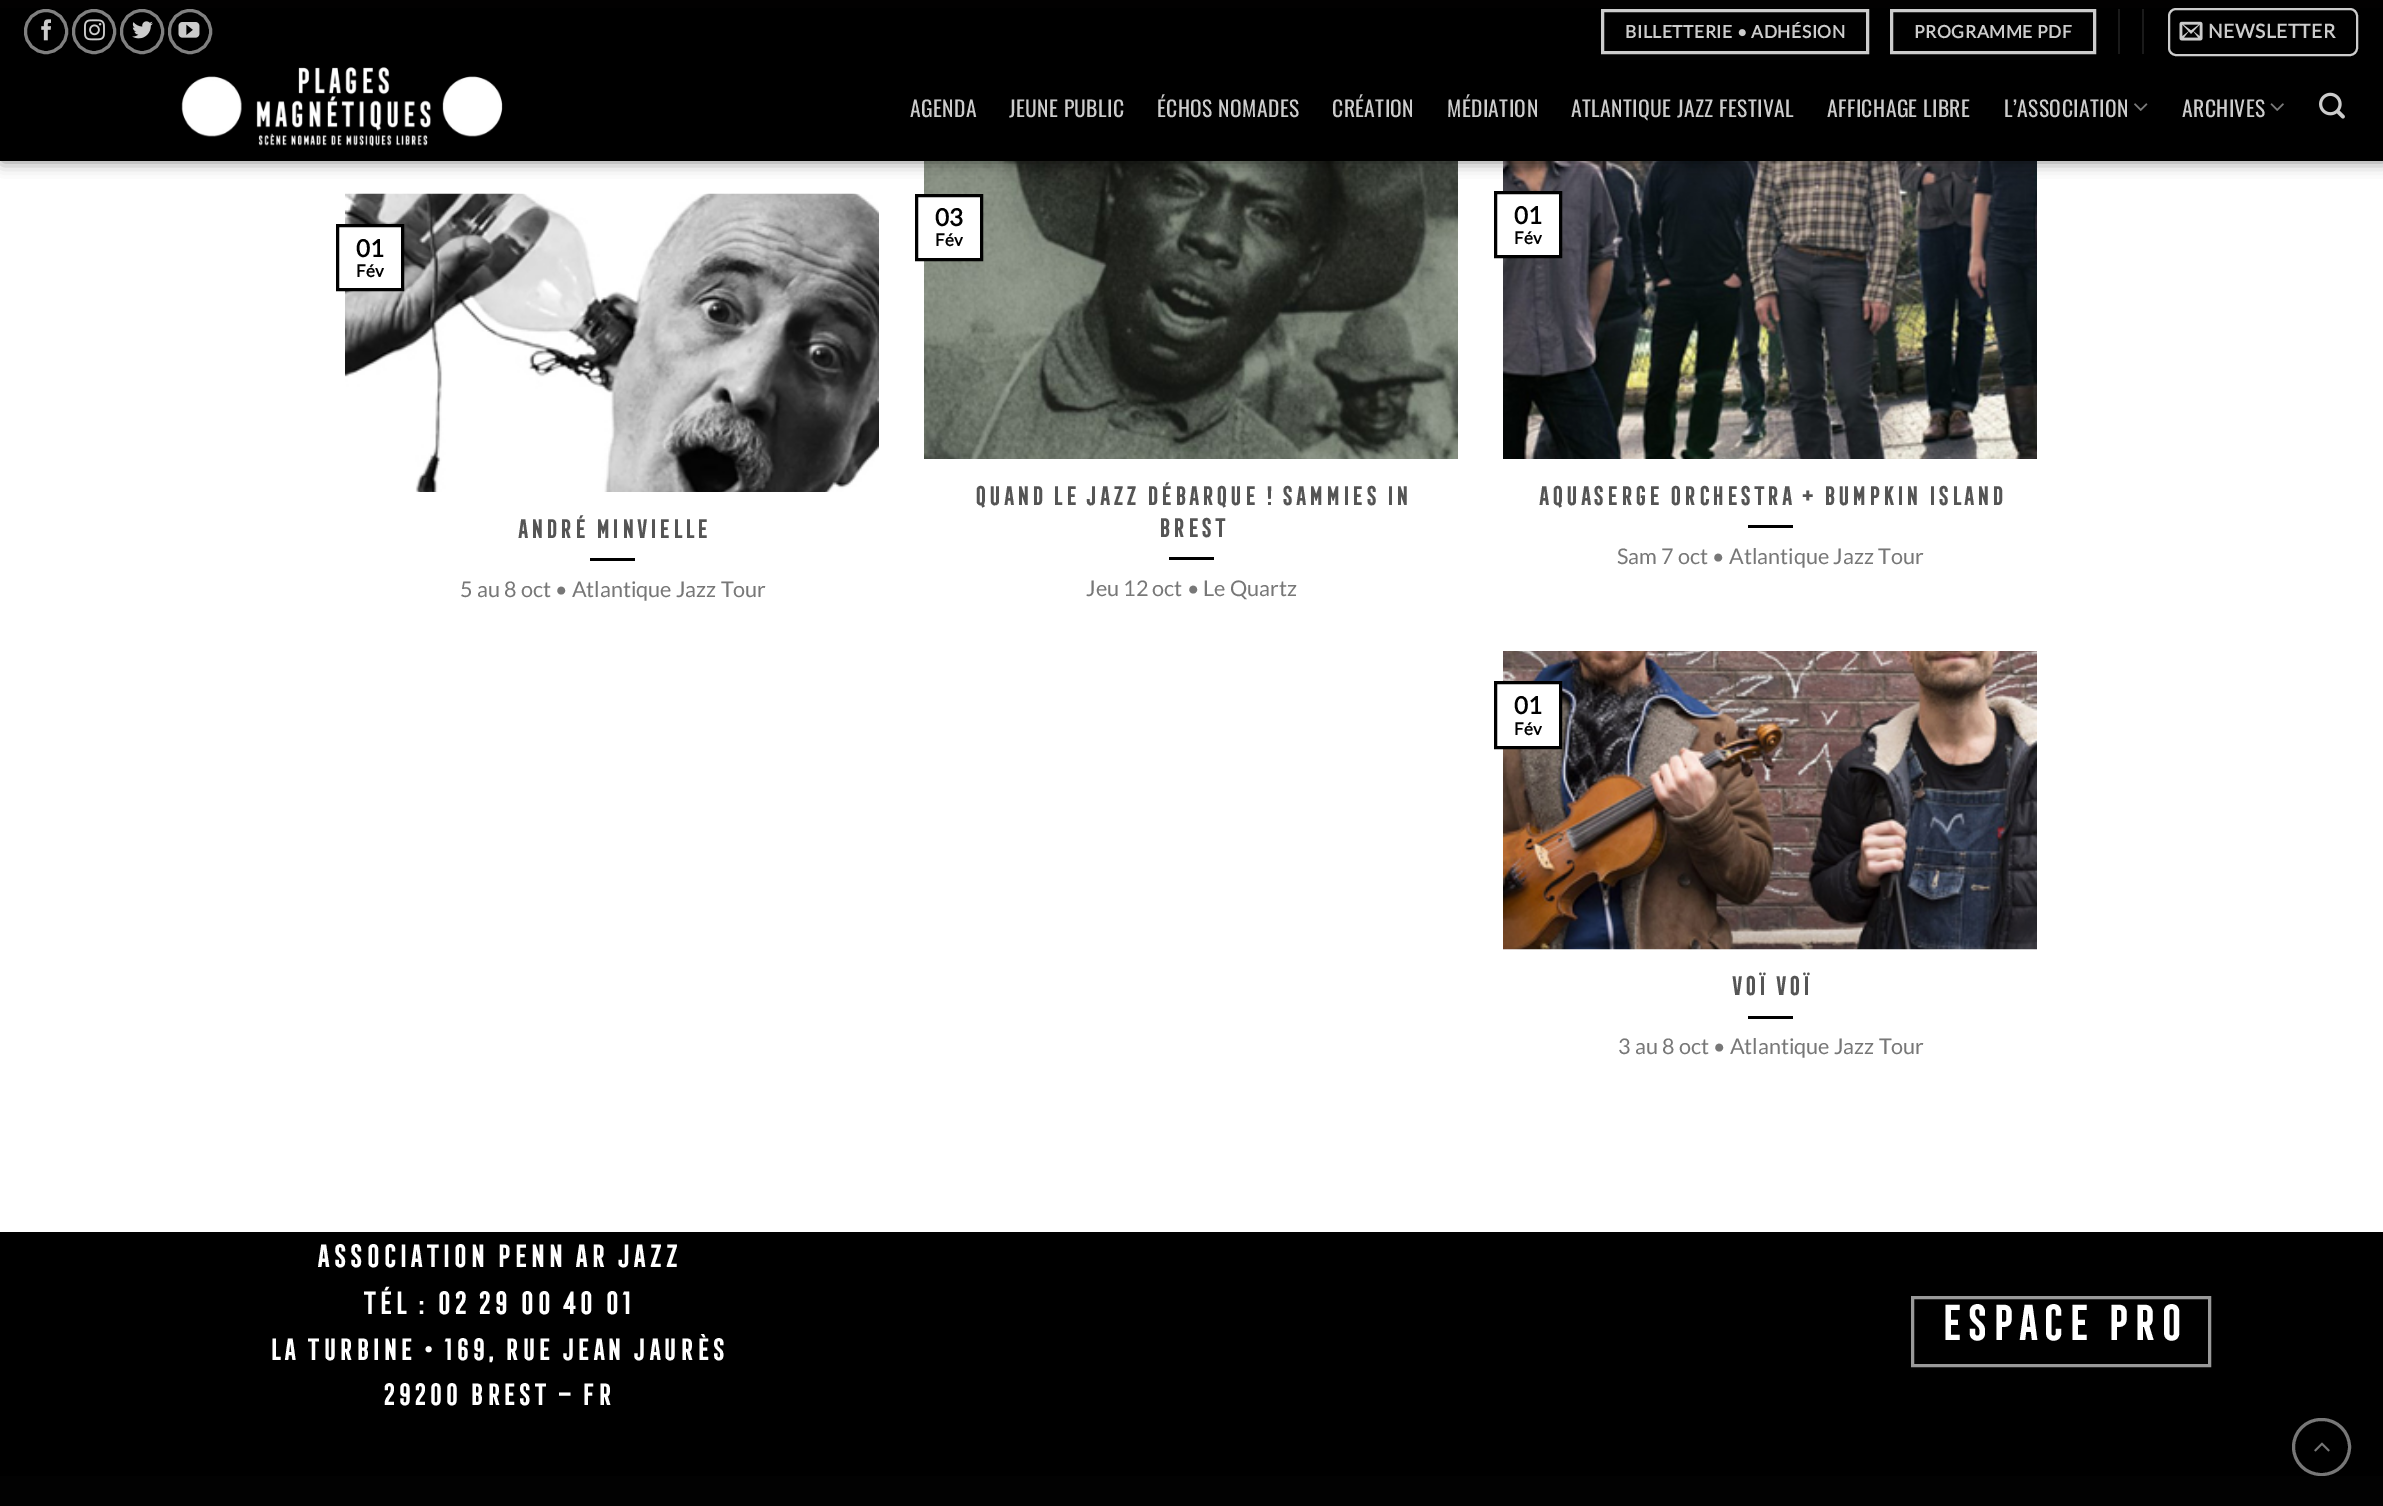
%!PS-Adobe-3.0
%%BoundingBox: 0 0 2383 1506
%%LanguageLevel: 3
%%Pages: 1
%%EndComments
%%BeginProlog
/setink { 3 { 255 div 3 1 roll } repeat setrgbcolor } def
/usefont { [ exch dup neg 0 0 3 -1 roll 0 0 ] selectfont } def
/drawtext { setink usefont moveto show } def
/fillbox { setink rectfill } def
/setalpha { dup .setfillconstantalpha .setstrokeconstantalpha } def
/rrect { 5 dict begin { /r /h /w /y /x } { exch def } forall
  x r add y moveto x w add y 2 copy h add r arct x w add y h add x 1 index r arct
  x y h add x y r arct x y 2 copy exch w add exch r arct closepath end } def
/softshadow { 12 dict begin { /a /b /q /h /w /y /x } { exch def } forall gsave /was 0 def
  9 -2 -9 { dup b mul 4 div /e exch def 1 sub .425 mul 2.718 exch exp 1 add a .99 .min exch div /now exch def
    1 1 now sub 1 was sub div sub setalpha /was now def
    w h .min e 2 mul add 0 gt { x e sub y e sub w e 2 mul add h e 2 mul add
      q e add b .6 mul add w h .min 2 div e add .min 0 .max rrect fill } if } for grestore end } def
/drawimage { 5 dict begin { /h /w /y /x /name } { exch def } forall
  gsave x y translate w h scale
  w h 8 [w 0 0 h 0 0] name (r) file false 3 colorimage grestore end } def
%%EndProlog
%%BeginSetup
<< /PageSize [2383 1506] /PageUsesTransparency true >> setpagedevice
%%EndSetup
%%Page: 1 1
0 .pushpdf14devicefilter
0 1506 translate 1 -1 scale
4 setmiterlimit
0 0 2383 1506 255 255 255 fillbox
(assets/img11.rgb) 924 161 534 298 drawimage
(assets/img12.rgb) 1503 161 534 298 drawimage
0 0 0 setink
2 2 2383 160 0 7.5 0.45 softshadow
0 0 2383 8 2 1 1 fillbox
0 8 2383 153 0 0 0 fillbox
128 128 128 setink
3 setlinewidth
25.5 10.5 41 42 20.5 rrect stroke
(assets/img1.rgb) 41 19 10 22 drawimage
73.5 10.5 41 42 20.5 rrect stroke
(assets/img2.rgb) 84 19 21 22 drawimage
121.5 10.5 41 42 20.5 rrect stroke
(assets/img3.rgb) 132 21 21 18 drawimage
169.5 10.5 41 42 20.5 rrect stroke
(assets/img4.rgb) 178 22 22 16 drawimage
204 204 204 setink
1602.5 10.5 265 42 rectstroke
/Lato-Bold 17.5 usefont
1625 38 moveto 0.5 0 (BILLETTERIE • ADHÉSION) ashow
1891.5 10.5 203 42 rectstroke
1914 38 moveto 0.5 0 (PROGRAMME PDF) ashow
2118 9 2 45 26 26 26 fillbox
2142 9 2 45 26 26 26 fillbox
204 204 204 setink
2 setlinewidth
2169 9 188 46 7 rrect stroke
(assets/img5.rgb) 2179 21 24 20 drawimage
/Lato-Bold 19.25 usefont
2208 38 moveto 0.5 0 (NEWSLETTER) ashow
(assets/img6.rgb) 181 67 322 80 drawimage
/Oswald-Regular 21.6 usefont
910 117 moveto 0.4 0 (AGENDA) ashow
1009 117 moveto 0.4 0 (JEUNE PUBLIC) ashow
1157 117 moveto 0.4 0 (ÉCHOS NOMADES) ashow
1332 117 moveto 0.4 0 (CRÉATION) ashow
1447 117 moveto 0.4 0 (MÉDIATION) ashow
1571 117 moveto 0.4 0 (ATLANTIQUE JAZZ FESTIVAL) ashow
1827 117 moveto 0.4 0 (AFFICHAGE LIBRE) ashow
2004 117 moveto 0.4 0 (L’ASSOCIATION) ashow
(assets/img7.rgb) 2134 103 14 8 drawimage
2182 117 moveto 0.4 0 (ARCHIVES) ashow
(assets/img8.rgb) 2270 103 14 8 drawimage
(assets/img9.rgb) 2319 92 26 27 drawimage
(assets/img10.rgb) 345 193 534 299 drawimage
345 227 56 61 255 255 255 fillbox
0 0 0 setink
3 setlinewidth
337.5 225.5 65 64 rectstroke
(01) 356 257 /Lato-Bold 24 0 0 0 drawtext
(Fév) 356 277 /Lato-Bold 17 0 0 0 drawtext
(André Minvielle) 516 538 /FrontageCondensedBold-Bold 24.8 85 85 85 drawtext
590 558 45 3 0 0 0 fillbox
(5 au 8 oct • Atlantique Jazz Tour) 460 597 /Lato-Regular 21.6 119 119 119 drawtext
924 197 56 61 255 255 255 fillbox
0 0 0 setink
916.5 195.5 65 64 rectstroke
(03) 935 226 /Lato-Bold 24 0 0 0 drawtext
(Fév) 935 246 /Lato-Bold 17 0 0 0 drawtext
(Quand le jazz débarque ! Sammies in) 973 505 /FrontageCondensedBold-Bold 24.8 85 85 85 drawtext
(Brest) 1157 537 /FrontageCondensedBold-Bold 24.8 85 85 85 drawtext
1169 557 45 3 0 0 0 fillbox
(Jeu 12 oct • Le Quartz) 1086 596 /Lato-Regular 21.6 119 119 119 drawtext
1503 194 56 61 255 255 255 fillbox
0 0 0 setink
1495.5 192.5 65 64 rectstroke
(01) 1514 224 /Lato-Bold 24 0 0 0 drawtext
(Fév) 1514 244 /Lato-Bold 17 0 0 0 drawtext
(Aquaserge Orchestra + Bumpkin Island) 1537 505 /FrontageCondensedBold-Bold 24.8 85 85 85 drawtext
1748 525 45 3 0 0 0 fillbox
(Sam 7 oct • Atlantique Jazz Tour) 1617 564 /Lato-Regular 21.6 119 119 119 drawtext
(assets/img13.rgb) 1503 651 534 299 drawimage
1503 684 56 62 255 255 255 fillbox
0 0 0 setink
1495.5 682.5 65 65 rectstroke
(01) 1514 714 /Lato-Bold 24 0 0 0 drawtext
(Fév) 1514 735 /Lato-Bold 17 0 0 0 drawtext
(Voï Voï) 1730 995 /FrontageCondensedBold-Bold 24.8 85 85 85 drawtext
1748 1016 45 3 0 0 0 fillbox
(3 au 8 oct • Atlantique Jazz Tour) 1618 1054 /Lato-Regular 21.6 119 119 119 drawtext
0 1232 2383 244 0 0 0 fillbox
(Association Penn Ar Jazz) 315 1267 /FrontageCondensedBold-Bold 29.75 255 255 255 drawtext
(Tél : 02 29 00 40 01) 361 1314 /FrontageCondensedBold-Bold 29.75 255 255 255 drawtext
(La Turbine • 169, rue Jean Jaurès) 268 1360 /FrontageCondensedBold-Bold 28.4 255 255 255 drawtext
(29200 BREST – FR) 381 1405 /FrontageCondensedBold-Bold 28.4 255 255 255 drawtext
153 153 153 setink
1912.5 1297.5 297 68 rectstroke
(ESPACE PRO) 1938 1340 /FrontageCondensedBold-Bold 46.5 255 255 255 drawtext
119 119 119 setink
2293.5 1419.5 56 55 27.5 rrect stroke
(assets/img14.rgb) 2314 1442 16 10 drawimage
0 1476 2383 30 2 2 2 fillbox
.poppdf14devicefilter showpage
%%EOF
